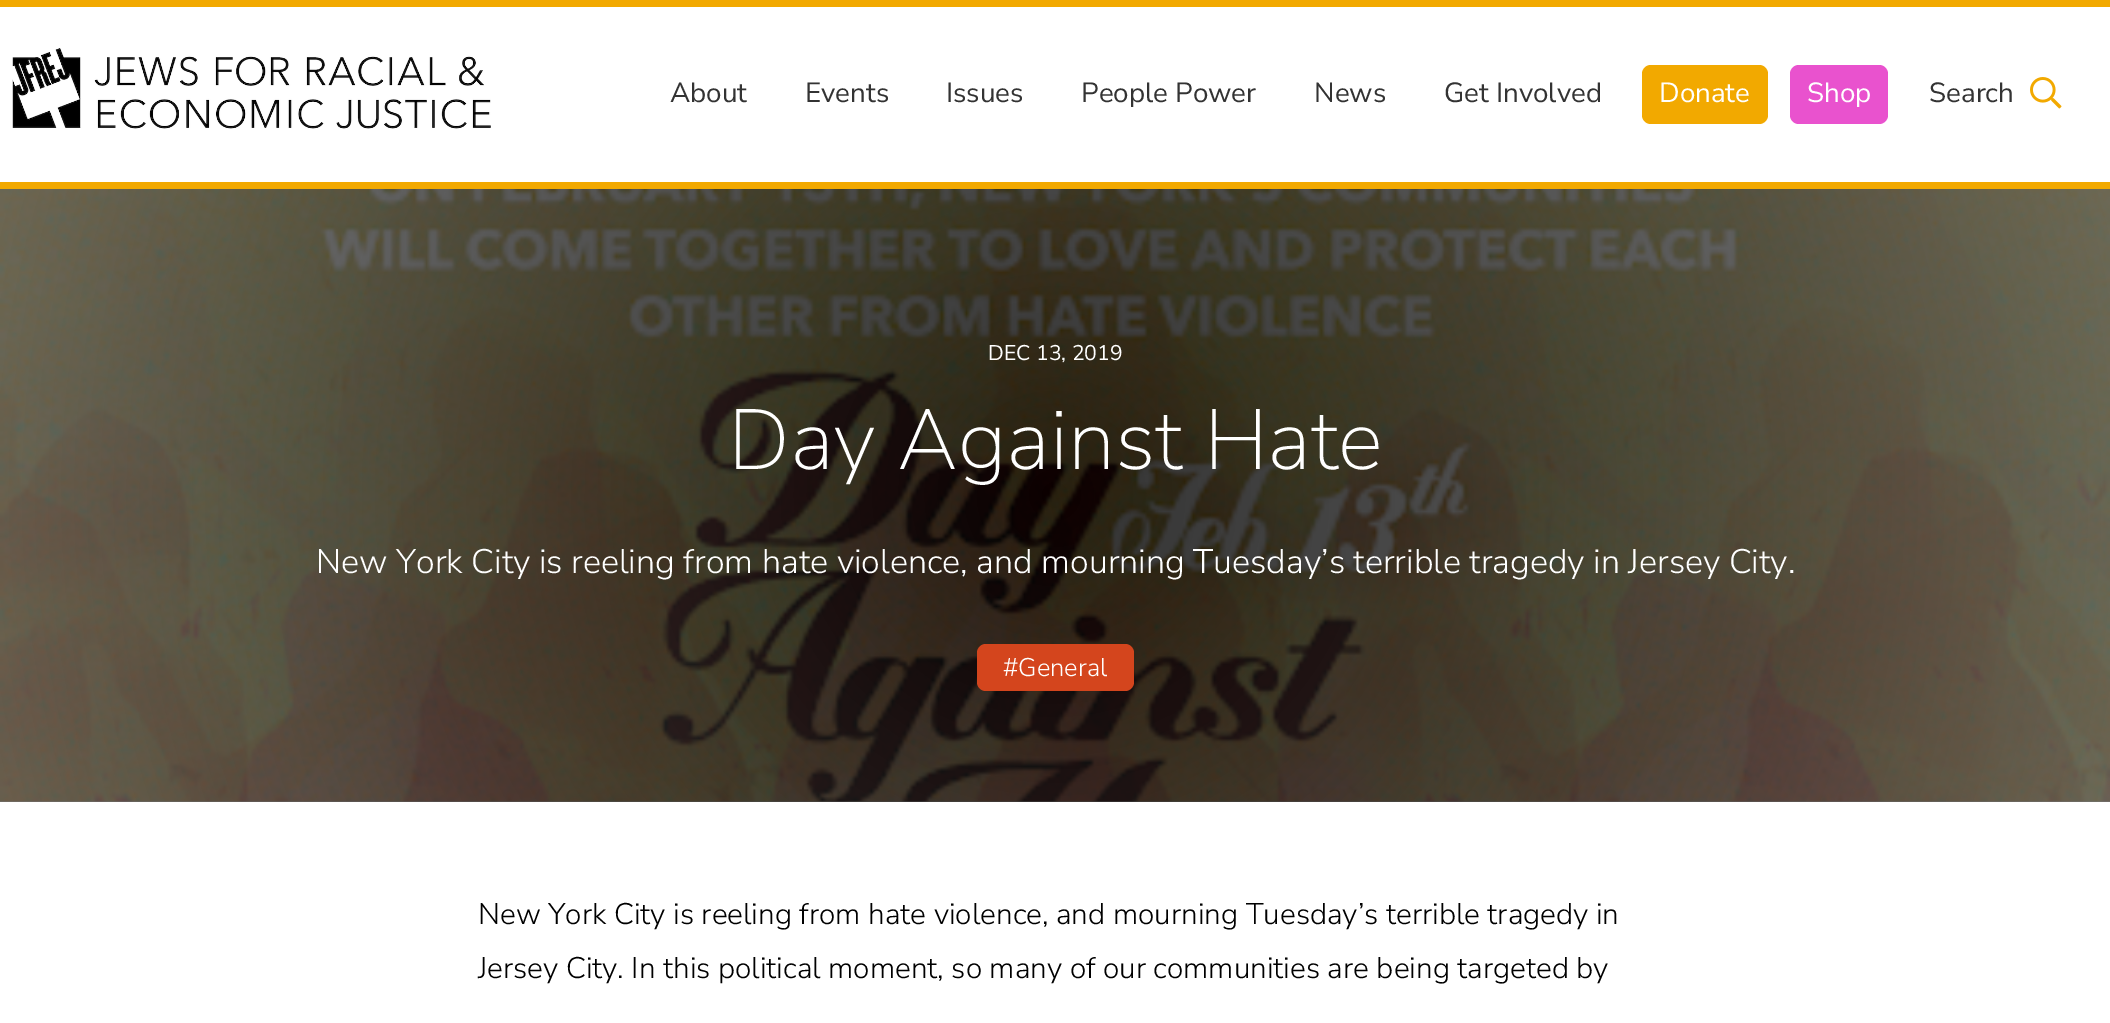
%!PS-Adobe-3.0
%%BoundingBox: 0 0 2110 1023
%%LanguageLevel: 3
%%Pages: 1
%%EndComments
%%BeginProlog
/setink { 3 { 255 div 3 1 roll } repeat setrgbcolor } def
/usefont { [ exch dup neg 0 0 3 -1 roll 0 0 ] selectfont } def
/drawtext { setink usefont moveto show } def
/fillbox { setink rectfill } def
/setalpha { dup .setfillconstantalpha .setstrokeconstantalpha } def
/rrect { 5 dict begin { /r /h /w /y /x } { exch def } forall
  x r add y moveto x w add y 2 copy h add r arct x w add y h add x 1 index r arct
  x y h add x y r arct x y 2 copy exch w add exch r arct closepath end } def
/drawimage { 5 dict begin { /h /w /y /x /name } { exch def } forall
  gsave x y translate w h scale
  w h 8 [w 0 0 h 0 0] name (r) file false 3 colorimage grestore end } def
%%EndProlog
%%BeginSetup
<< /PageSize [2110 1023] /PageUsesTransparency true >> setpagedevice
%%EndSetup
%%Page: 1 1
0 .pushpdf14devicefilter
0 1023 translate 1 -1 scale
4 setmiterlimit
0 0 2110 1023 255 255 255 fillbox
0 0 2110 7 242 169 0 fillbox
(assets/img1.rgb) 12 48 479 81 drawimage
(About) 670 102 /NunitoSans-Regular 27.75 51 51 51 drawtext
(Events) 805 102 /NunitoSans-Regular 27.75 51 51 51 drawtext
(Issues) 946 102 /NunitoSans-Regular 27.75 51 51 51 drawtext
(People Power) 1081 102 /NunitoSans-Regular 27.75 51 51 51 drawtext
(News) 1314 102 /NunitoSans-Regular 27.75 51 51 51 drawtext
(Get Involved) 1444 102 /NunitoSans-Regular 27.75 51 51 51 drawtext
242 169 0 setink
1642 65 126 59 9 rrect fill
(Donate) 1659 102 /NunitoSans-Regular 27.75 255 255 255 drawtext
233 82 206 setink
1790 65 98 59 9 rrect fill
(Shop) 1807 102 /NunitoSans-Regular 27.75 255 255 255 drawtext
(assets/img2.rgb) 2030 77 32 32 drawimage
(Search) 1929 102 /NunitoSans-Regular 27.75 51 51 51 drawtext
0 182 2110 7 242 169 0 fillbox
(assets/img3.rgb) 0 189 2110 613 drawimage
0.8 setalpha
gsave 0 189 moveto 2110 189 lineto 2110 802 lineto 0 802 lineto closepath clip newpath 1055 495 translate 1099 1099 scale
<< /ShadingType 3 /ColorSpace /DeviceRGB /Coords [0 0 0 0 0 1] /Extend [true true] /Function << /FunctionType 2 /Domain [0 1] /C0 [0 0 0] /C1 [0.329 0.329 0.329] /N 1 >> >> shfill grestore
1 setalpha
(DEC 13, 2019) 988 360 /NunitoSans-Regular 21.25 255 255 255 drawtext
(Day Against Hate) 728 469 /NunitoSans-ExtraLight 85 255 255 255 drawtext
(New York City is reeling from hate violence, and mourning Tuesday’s terrible tragedy in Jersey City.) 316 573 /NunitoSans-Light 34.05 255 255 255 drawtext
212 69 29 setink
977 644 157 47 9 rrect fill
(#General) 1003 676 /NunitoSans-Light 25.5 255 255 255 drawtext
(New York City is reeling from hate violence, and mourning Tuesday’s terrible tragedy in) 478 924 /NunitoSans-Light 29.8 0 0 0 drawtext
(Jersey City. In this political moment, so many of our communities are being targeted by) 478 978 /NunitoSans-Light 29.8 0 0 0 drawtext
.poppdf14devicefilter showpage
%%EOF
